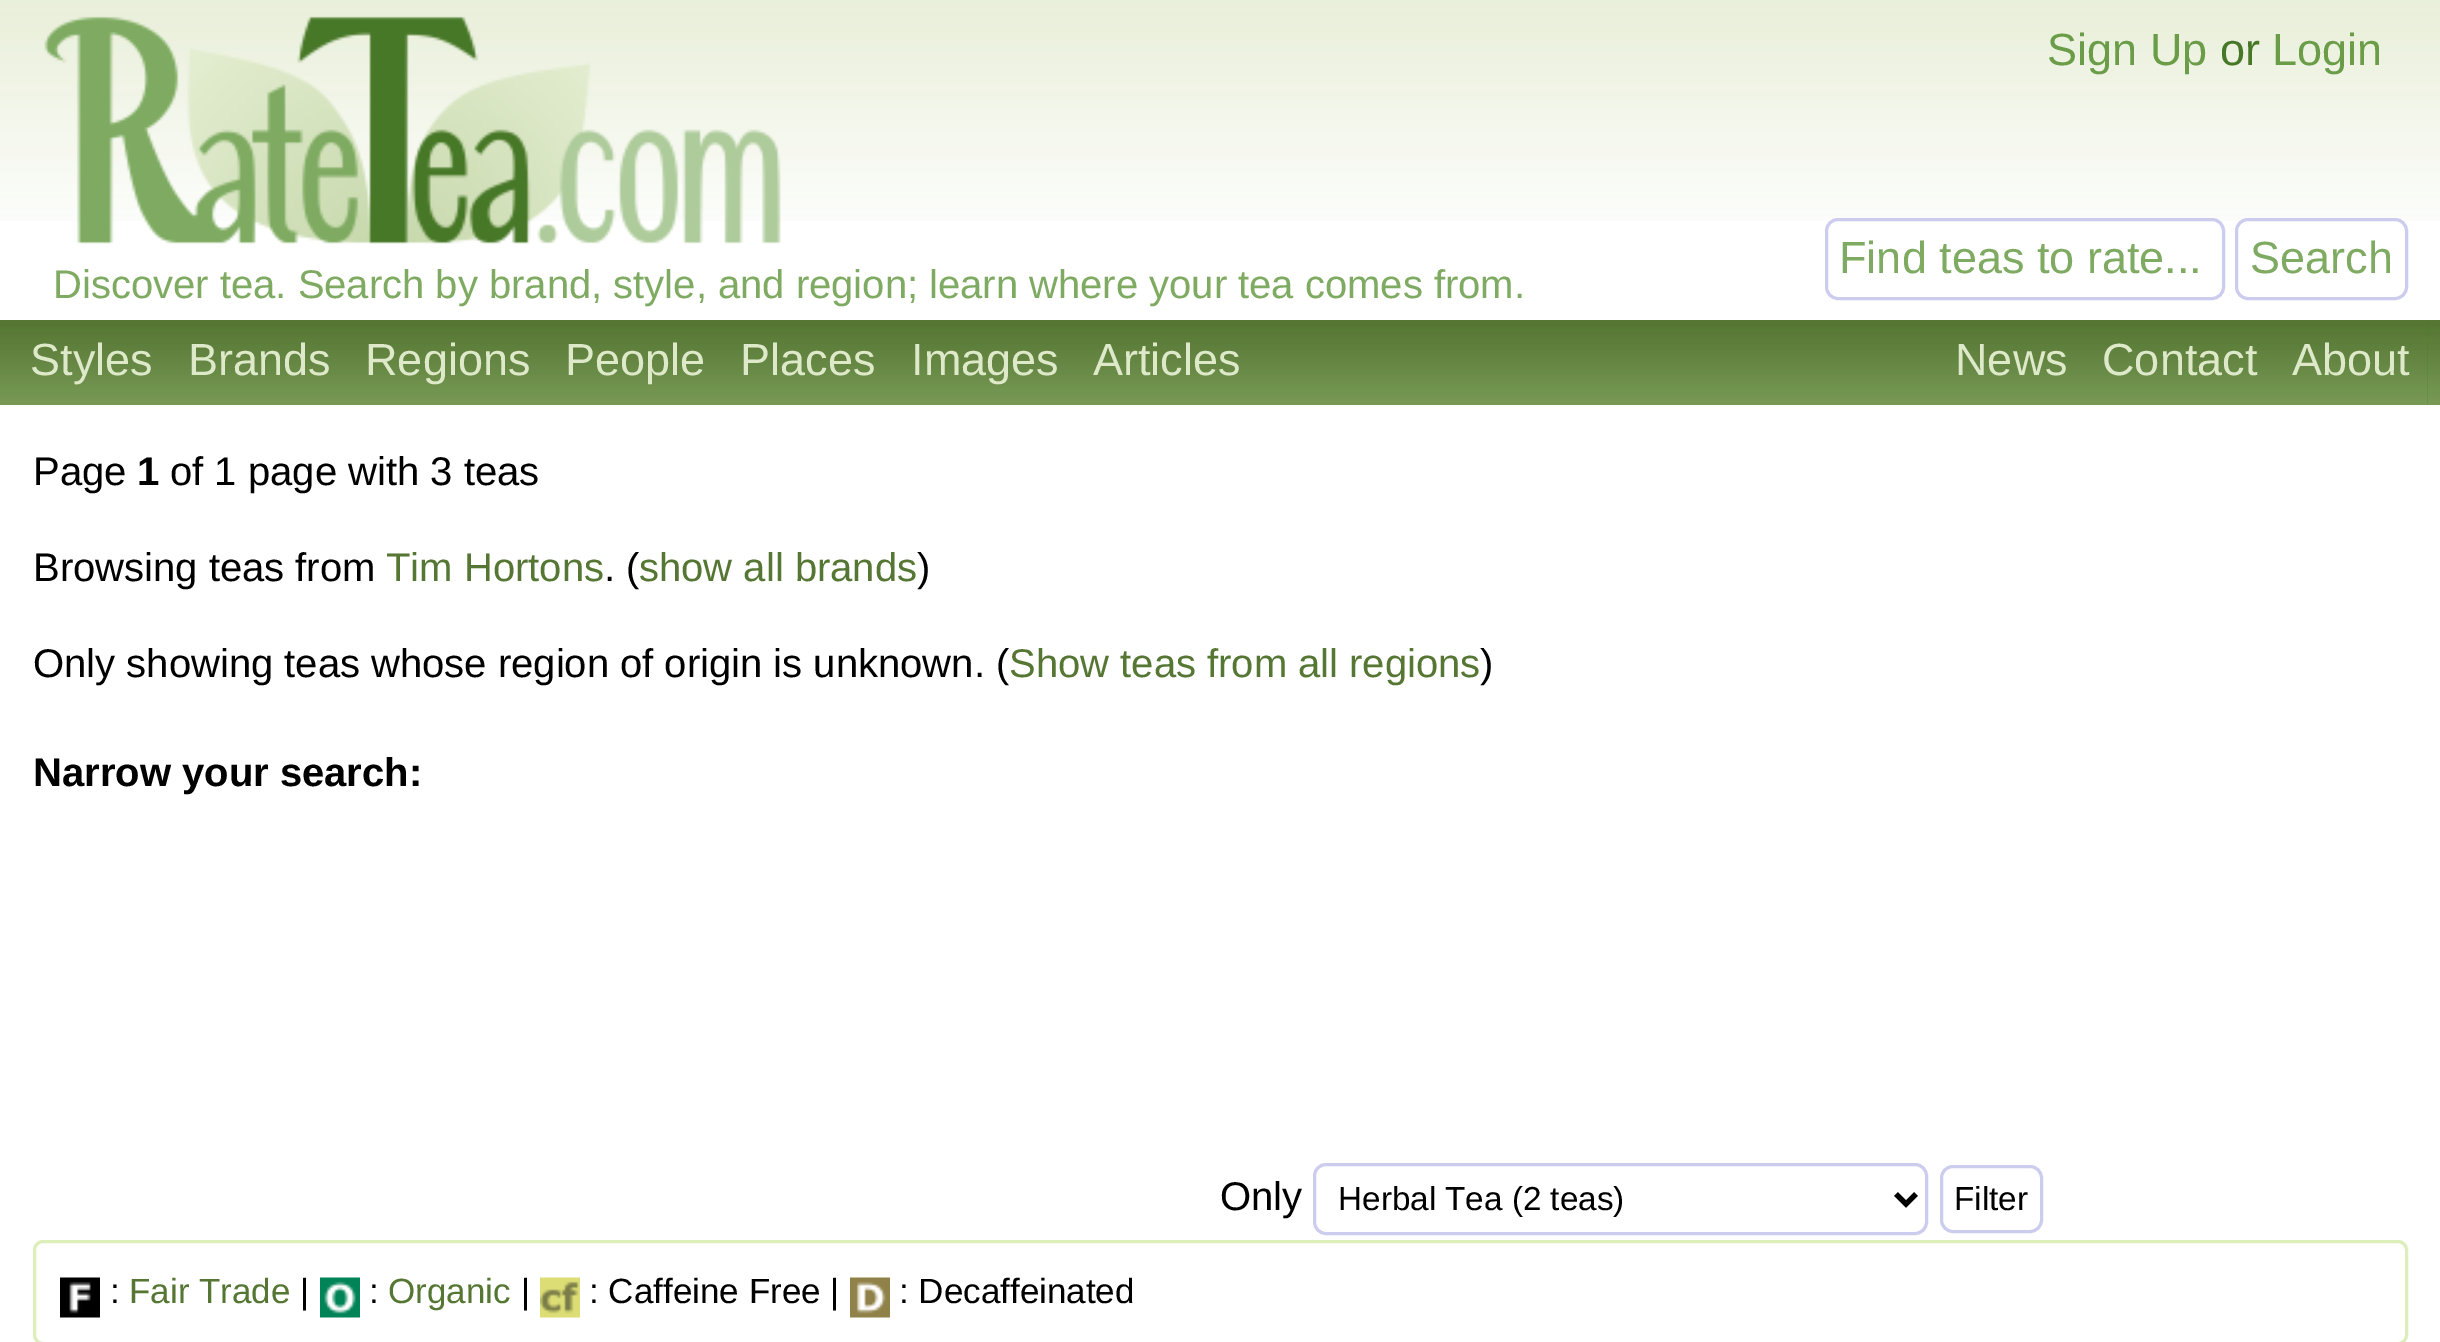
%!PS-Adobe-3.0
%%BoundingBox: 0 0 2440 1342
%%LanguageLevel: 3
%%Pages: 1
%%EndComments
%%BeginProlog
/setink { 3 { 255 div 3 1 roll } repeat setrgbcolor } def
/usefont { [ exch dup neg 0 0 3 -1 roll 0 0 ] selectfont } def
/drawtext { setink usefont moveto show } def
/fillbox { setink rectfill } def
/rrect { 5 dict begin { /r /h /w /y /x } { exch def } forall
  x r add y moveto x w add y 2 copy h add r arct x w add y h add x 1 index r arct
  x y h add x y r arct x y 2 copy exch w add exch r arct closepath end } def
/drawimage { 5 dict begin { /h /w /y /x /name } { exch def } forall
  gsave x y translate w h scale
  w h 8 [w 0 0 h 0 0] name (r) file false 3 colorimage grestore end } def
%%EndProlog
%%BeginSetup
<< /PageSize [2440 1342] >> setpagedevice
%%EndSetup
%%Page: 1 1
0 1342 translate 1 -1 scale
4 setmiterlimit
0 0 2440 1342 255 255 255 fillbox
(assets/img1.rgb) 0 0 2440 221 drawimage
(assets/img2.rgb) 44 16 737 228 drawimage
(Sign Up) 2047 65 /LiberationSans-Regular 45 107 157 73 drawtext
(or) 2220 65 /LiberationSans-Regular 45 71 120 39 drawtext
(Login) 2272 65 /LiberationSans-Regular 45 107 157 73 drawtext
255 255 255 setink
1826.5 219.5 397 79 11.5 rrect gsave fill grestore
204 204 238 setink
3 setlinewidth
stroke
(Find teas to rate...) 1839 273 /LiberationSans-Regular 45 126 171 97 drawtext
255 255 255 setink
2236.5 219.5 170 79 11.5 rrect gsave fill grestore
204 204 238 setink
stroke
(Search) 2250 273 /LiberationSans-Regular 45 126 171 97 drawtext
(Discover tea. Search by brand, style, and region; learn where your tea comes from.) 53 298 /LiberationSans-Regular 40 126 171 97 drawtext
(assets/img3.rgb) 0 320 2440 85 drawimage
2427 320 1 85 71 120 39 fillbox
(assets/img4.rgb) 13 320 2415 85 drawimage
(Styles) 30 375 /LiberationSans-Regular 45 222 233 201 drawtext
(Brands) 188 375 /LiberationSans-Regular 45 222 233 201 drawtext
(Regions) 365 375 /LiberationSans-Regular 45 222 233 201 drawtext
(People) 565 375 /LiberationSans-Regular 45 222 233 201 drawtext
(Places) 740 375 /LiberationSans-Regular 45 222 233 201 drawtext
(Images) 911 375 /LiberationSans-Regular 45 222 233 201 drawtext
(Articles) 1093 375 /LiberationSans-Regular 45 222 233 201 drawtext
(News) 1955 375 /LiberationSans-Regular 45 222 233 201 drawtext
(Contact) 2102 375 /LiberationSans-Regular 45 222 233 201 drawtext
(assets/img5.rgb) 2427 331 1 74 drawimage
(About) 2292 375 /LiberationSans-Regular 45 222 233 201 drawtext
(Page) 33 485 /LiberationSans-Regular 40 0 0 0 drawtext
(1) 137 485 /LiberationSans-Bold 40 0 0 0 drawtext
(of 1 page with 3 teas) 170 485 /LiberationSans-Regular 40 0 0 0 drawtext
(Browsing teas from) 33 581 /LiberationSans-Regular 40 0 0 0 drawtext
(Tim Hortons) 386 581 /LiberationSans-Regular 40 85 119 51 drawtext
(. \() 604 581 /LiberationSans-Regular 40 0 0 0 drawtext
(show all brands) 639 581 /LiberationSans-Regular 40 85 119 51 drawtext
(\)) 917 581 /LiberationSans-Regular 40 0 0 0 drawtext
(Only showing teas whose region of origin is unknown. \() 33 677 /LiberationSans-Regular 40 0 0 0 drawtext
(Show teas from all regions) 1009 677 /LiberationSans-Regular 40 85 119 51 drawtext
(\)) 1480 677 /LiberationSans-Regular 40 0 0 0 drawtext
(Narrow your search:) 33 786 /LiberationSans-Bold 40 0 0 0 drawtext
(Only) 1220 1210 /LiberationSans-Regular 40 0 0 0 drawtext
204 204 238 setink
1314.5 1164.5 612 69 11.5 rrect stroke
0 0 0 setink
5 setlinewidth
1896 1194 moveto 1906 1204 lineto 1916 1194 lineto stroke
(Herbal Tea \(2 teas\)) 1338 1210 /LiberationSans-Regular 33.25 0 0 0 drawtext
204 204 238 setink
3 setlinewidth
1941.5 1166.5 100 65 11.5 rrect stroke
(Filter) 1954 1210 /LiberationSans-Regular 33.25 0 0 0 drawtext
221 238 187 setink
34.5 1241.5 2372 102 8.5 rrect stroke
(assets/img6.rgb) 60 1277 40 41 drawimage
(:) 110 1303 /LiberationSans-Regular 35 0 0 0 drawtext
(Fair Trade) 129 1303 /LiberationSans-Regular 35 85 119 51 drawtext
(|) 300 1303 /LiberationSans-Regular 35 0 0 0 drawtext
(assets/img7.rgb) 320 1277 40 41 drawimage
(:) 369 1303 /LiberationSans-Regular 35 0 0 0 drawtext
(Organic) 388 1303 /LiberationSans-Regular 35 85 119 51 drawtext
(|) 521 1303 /LiberationSans-Regular 35 0 0 0 drawtext
(assets/img8.rgb) 540 1277 40 41 drawimage
(: Caffeine Free |) 589 1303 /LiberationSans-Regular 35 0 0 0 drawtext
(assets/img9.rgb) 850 1277 40 41 drawimage
(: Decaffeinated) 899 1303 /LiberationSans-Regular 35 0 0 0 drawtext
showpage
%%EOF
